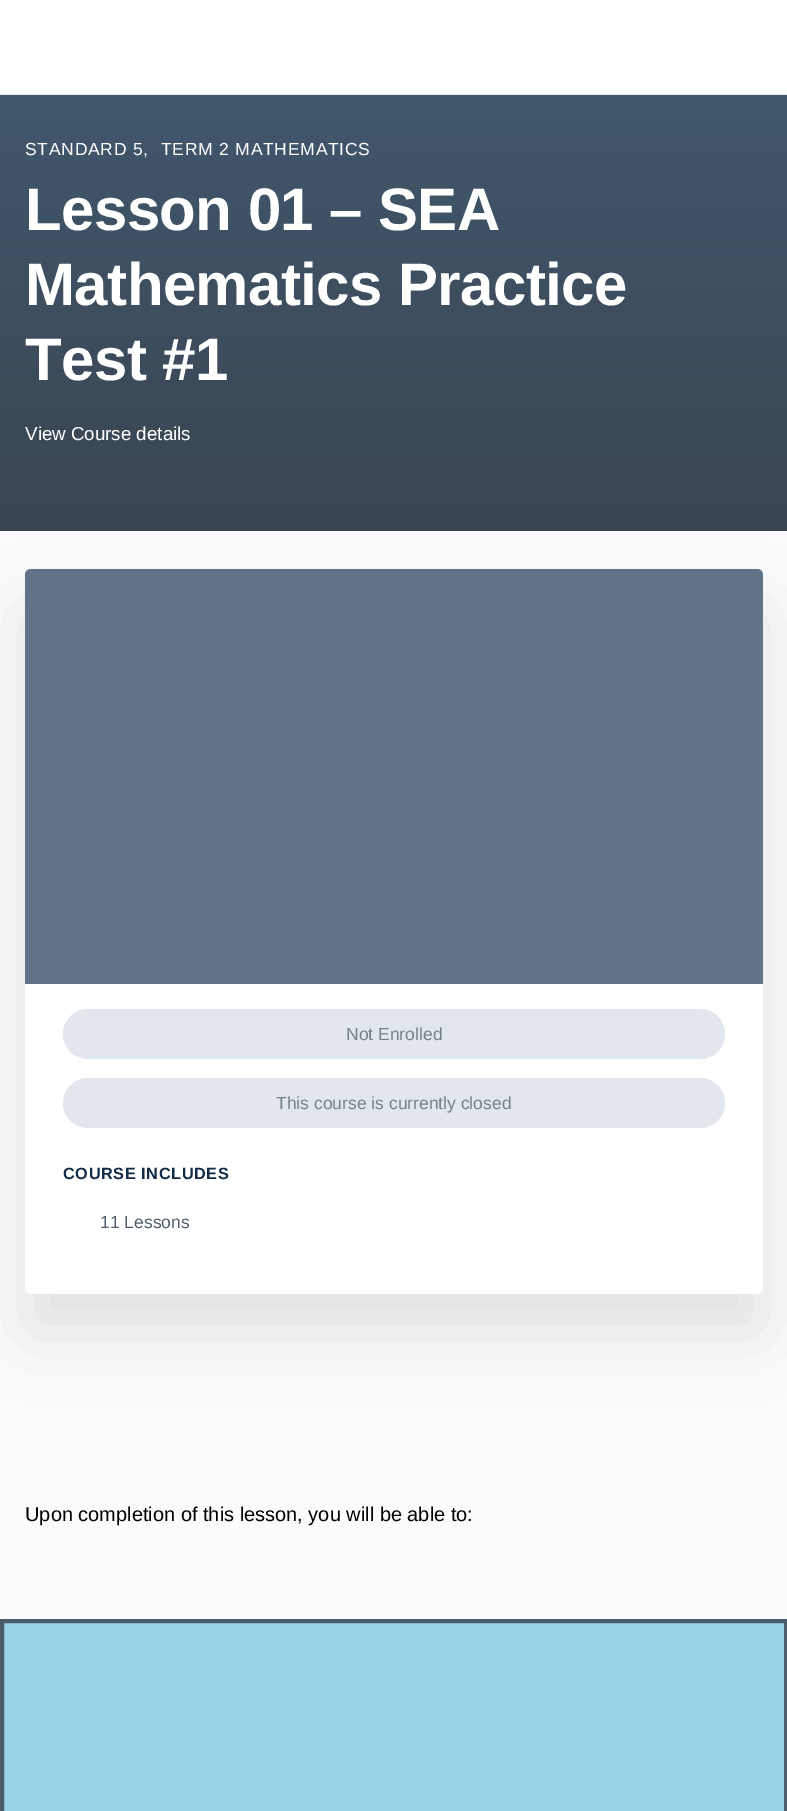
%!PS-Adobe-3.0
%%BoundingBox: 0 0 787 1811
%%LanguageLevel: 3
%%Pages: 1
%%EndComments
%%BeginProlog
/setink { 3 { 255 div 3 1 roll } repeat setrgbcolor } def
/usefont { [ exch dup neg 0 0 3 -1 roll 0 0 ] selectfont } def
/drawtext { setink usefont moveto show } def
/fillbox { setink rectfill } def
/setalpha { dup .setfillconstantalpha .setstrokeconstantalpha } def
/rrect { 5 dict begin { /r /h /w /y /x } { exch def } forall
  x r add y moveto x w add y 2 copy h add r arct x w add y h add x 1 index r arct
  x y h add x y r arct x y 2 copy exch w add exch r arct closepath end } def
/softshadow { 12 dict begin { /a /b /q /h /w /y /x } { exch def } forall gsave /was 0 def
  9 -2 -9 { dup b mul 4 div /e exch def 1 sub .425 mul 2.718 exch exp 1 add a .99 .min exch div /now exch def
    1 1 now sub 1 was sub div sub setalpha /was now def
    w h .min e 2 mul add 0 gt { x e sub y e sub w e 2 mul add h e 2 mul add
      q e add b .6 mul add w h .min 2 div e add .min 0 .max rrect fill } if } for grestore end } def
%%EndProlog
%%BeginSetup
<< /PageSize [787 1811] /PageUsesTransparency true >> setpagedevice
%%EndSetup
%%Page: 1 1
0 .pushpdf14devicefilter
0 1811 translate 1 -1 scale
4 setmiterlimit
0 0 787 1811 250 251 253 fillbox
0 0 787 94 255 255 255 fillbox
0 94 787 1 231 233 236 fillbox
0 0 0 setink
25 609 738 725 6 34 0.1 softshadow
gsave 0 95 moveto 787 95 lineto 787 531 lineto 0 531 lineto closepath clip newpath
<< /ShadingType 2 /ColorSpace /DeviceRGB /Coords [394 95 394 531] /Extend [true true] /Function << /FunctionType 3 /Domain [0 1] /Functions [<< /FunctionType 2 /Domain [0 1] /C0 [0.255 0.341 0.424] /C1 [0.255 0.341 0.424] /N 1 >> << /FunctionType 2 /Domain [0 1] /C0 [0.255 0.341 0.424] /C1 [0.227 0.271 0.318] /N 1 >>] /Bounds [0.04] /Encode [0 1 0 1] >> >> shfill grestore
/LiberationSans-Regular 17.5 usefont
255 255 255 setink
25 155 moveto 0.75 0 (STANDARD 5,) ashow
161 155 moveto 0.75 0 (TERM 2 MATHEMATICS) ashow
/LiberationSans-Bold 60 usefont
25 230 moveto -0.6 0 (Lesson 01 – SEA) ashow
25 305 moveto -0.6 0 (Mathematics Practice) ashow
25 380 moveto -0.6 0 (Test #1) ashow
(View Course details) 25 440 /LiberationSans-Regular 18.75 255 255 255 drawtext
96 115 135 setink
31 569 moveto 757 569 lineto 760.5 569 763 571.5 763 575 curveto 763 984 lineto 25 984 lineto 25 575 lineto 25 571.5 27.5 569 31 569 curveto closepath fill
255 255 255 setink
25 984 moveto 763 984 lineto 763 1288 lineto 763 1291.5 760.5 1294 757 1294 curveto 31 1294 lineto 27.5 1294 25 1291.5 25 1288 curveto closepath fill
226 231 237 setink
63 1009 662 50 25 rrect fill
(Not Enrolled) 346 1040 /LiberationSans-Regular 17.5 114 129 136 drawtext
226 231 237 setink
63 1078 662 50 25 rrect fill
(This course is currently closed) 276 1109 /LiberationSans-Regular 17.5 114 129 136 drawtext
/LiberationSans-Bold 16.25 usefont
18 43 70 setink
63 1179 moveto 0.6 0 (COURSE INCLUDES) ashow
(11 Lessons) 100 1228 /LiberationSans-Regular 17.5 77 92 109 drawtext
(Upon completion of this lesson, you will be able to:) 25 1521 /LiberationSans-Regular 20 0 0 0 drawtext
153 213 234 setink
2 1621 moveto 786 1621 lineto 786 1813 lineto 2 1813 lineto closepath gsave fill grestore
77 92 109 setink
4 setlinewidth
stroke
.poppdf14devicefilter showpage
%%EOF
